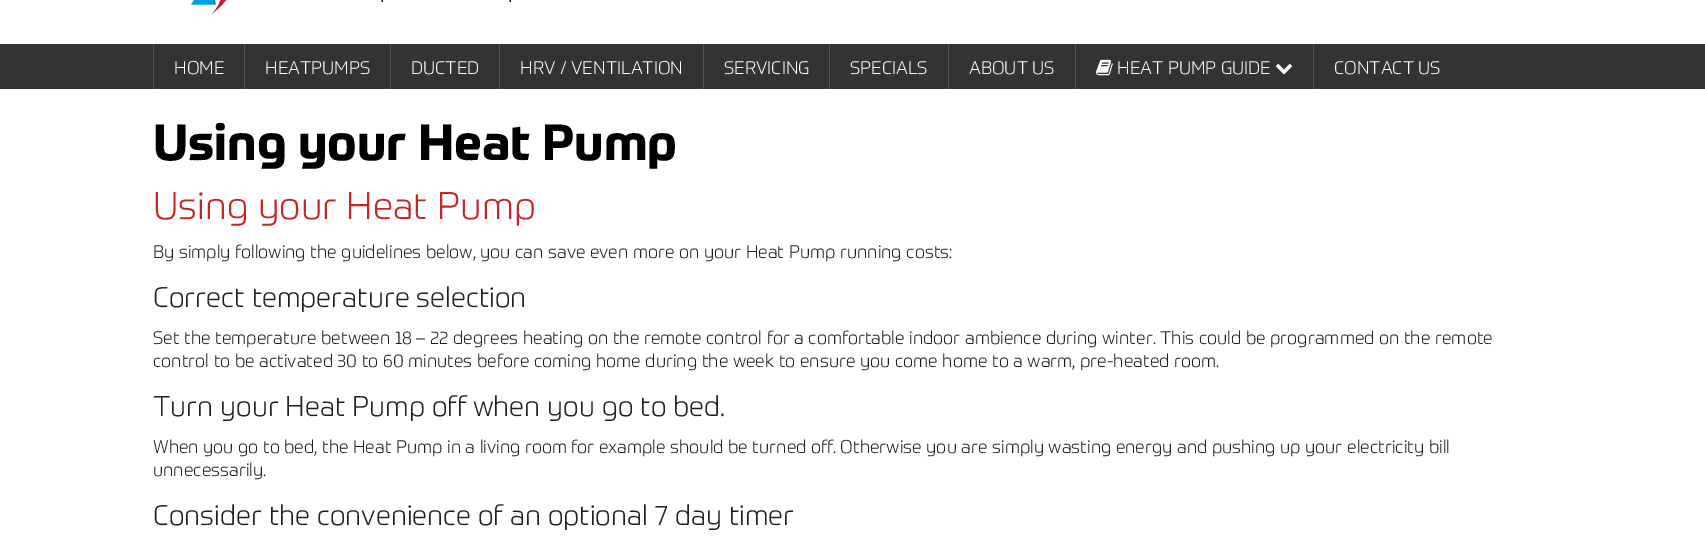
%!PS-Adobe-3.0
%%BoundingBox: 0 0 1705 552
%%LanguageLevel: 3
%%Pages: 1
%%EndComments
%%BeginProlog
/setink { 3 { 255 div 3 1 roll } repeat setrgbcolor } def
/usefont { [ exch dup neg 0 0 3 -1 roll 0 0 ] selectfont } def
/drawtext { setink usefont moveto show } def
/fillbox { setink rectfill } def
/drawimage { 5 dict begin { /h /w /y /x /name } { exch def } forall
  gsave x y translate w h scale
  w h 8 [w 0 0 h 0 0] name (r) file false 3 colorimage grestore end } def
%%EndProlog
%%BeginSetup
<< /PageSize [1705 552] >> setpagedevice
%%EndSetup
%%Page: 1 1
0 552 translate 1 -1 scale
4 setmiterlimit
0 0 1705 552 255 255 255 fillbox
(assets/img1.rgb) 191 0 321 15 drawimage
0 44 1705 45 51 51 51 fillbox
153 44 1 45 85 85 85 fillbox
(HOME) 174 74 /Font-Light 18 255 255 255 drawtext
244 44 1 45 85 85 85 fillbox
(HEATPUMPS) 265 74 /Font-Light 18 255 255 255 drawtext
390 44 1 45 85 85 85 fillbox
(DUCTED) 411 74 /Font-Light 18 255 255 255 drawtext
499 44 1 45 85 85 85 fillbox
(HRV / VENTILATION) 520 74 /Font-Light 18 255 255 255 drawtext
703 44 1 45 85 85 85 fillbox
(SERVICING) 724 74 /Font-Light 18 255 255 255 drawtext
829 44 1 45 85 85 85 fillbox
(SPECIALS) 850 74 /Font-Light 18 255 255 255 drawtext
948 44 1 45 85 85 85 fillbox
(ABOUT US) 969 74 /Font-Light 18 255 255 255 drawtext
1075 44 1 45 85 85 85 fillbox
(assets/img2.rgb) 1096 59 17 17 drawimage
(HEAT PUMP GUIDE) 1117 74 /Font-Light 18 255 255 255 drawtext
(assets/img3.rgb) 1275 64 18 11 drawimage
1313 44 1 45 85 85 85 fillbox
(CONTACT US) 1334 74 /Font-Light 18 255 255 255 drawtext
(Using your Heat Pump) 153 160 /Font-Bold 50 0 0 0 drawtext
(Using your Heat Pump) 153 219 /Font-Light 38 199 38 40 drawtext
(By simply following the guidelines below, you can save even more on your Heat Pump running costs:) 153 258 /Font-Light 18 35 31 32 drawtext
(Correct temperature selection) 153 307 /Font-Light 28 35 31 32 drawtext
(Set the temperature between 18 – 22 degrees heating on the remote control for a comfortable indoor ambience during winter. This could be programmed on the remote) 153 344 /Font-Light 18 35 31 32 drawtext
(control to be activated 30 to 60 minutes before coming home during the week to ensure you come home to a warm, pre-heated room.) 153 367 /Font-Light 18 35 31 32 drawtext
(Turn your Heat Pump off when you go to bed.) 153 416 /Font-Light 28 35 31 32 drawtext
(When you go to bed, the Heat Pump in a living room for example should be turned off. Otherwise you are simply wasting energy and pushing up your electricity bill) 153 453 /Font-Light 18 35 31 32 drawtext
(unnecessarily.) 153 476 /Font-Light 18 35 31 32 drawtext
(Consider the convenience of an optional 7 day timer) 153 525 /Font-Light 28 35 31 32 drawtext
showpage
%%EOF
